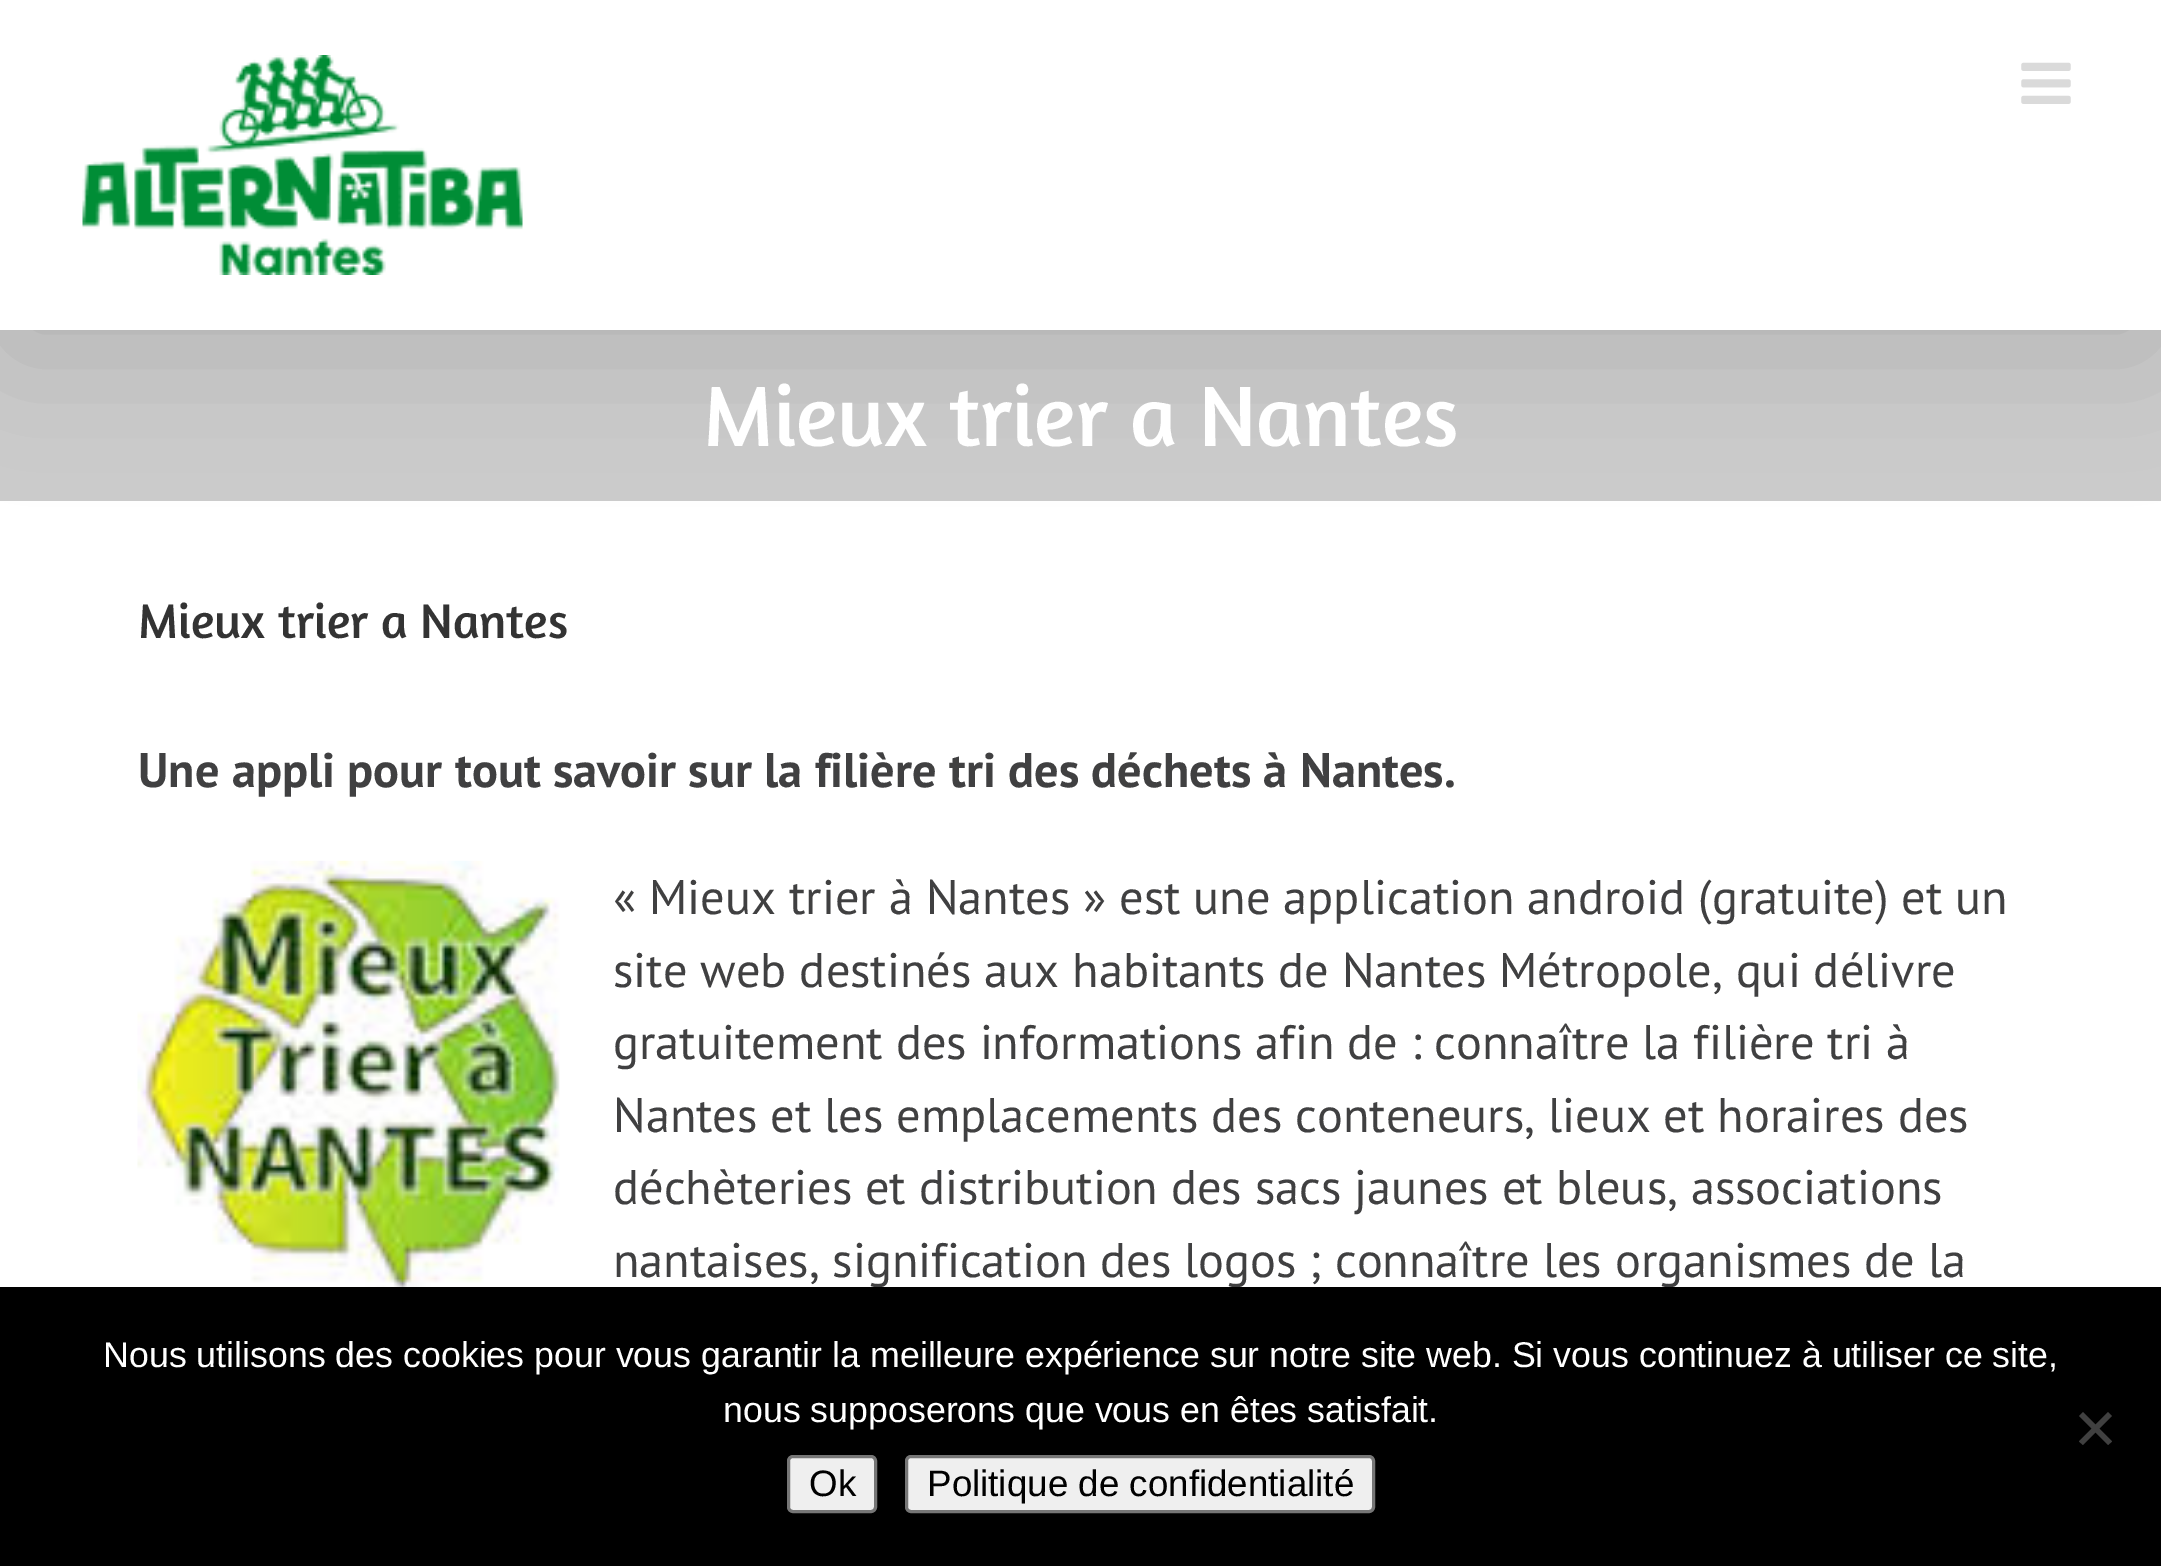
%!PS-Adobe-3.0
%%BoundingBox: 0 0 2161 1566
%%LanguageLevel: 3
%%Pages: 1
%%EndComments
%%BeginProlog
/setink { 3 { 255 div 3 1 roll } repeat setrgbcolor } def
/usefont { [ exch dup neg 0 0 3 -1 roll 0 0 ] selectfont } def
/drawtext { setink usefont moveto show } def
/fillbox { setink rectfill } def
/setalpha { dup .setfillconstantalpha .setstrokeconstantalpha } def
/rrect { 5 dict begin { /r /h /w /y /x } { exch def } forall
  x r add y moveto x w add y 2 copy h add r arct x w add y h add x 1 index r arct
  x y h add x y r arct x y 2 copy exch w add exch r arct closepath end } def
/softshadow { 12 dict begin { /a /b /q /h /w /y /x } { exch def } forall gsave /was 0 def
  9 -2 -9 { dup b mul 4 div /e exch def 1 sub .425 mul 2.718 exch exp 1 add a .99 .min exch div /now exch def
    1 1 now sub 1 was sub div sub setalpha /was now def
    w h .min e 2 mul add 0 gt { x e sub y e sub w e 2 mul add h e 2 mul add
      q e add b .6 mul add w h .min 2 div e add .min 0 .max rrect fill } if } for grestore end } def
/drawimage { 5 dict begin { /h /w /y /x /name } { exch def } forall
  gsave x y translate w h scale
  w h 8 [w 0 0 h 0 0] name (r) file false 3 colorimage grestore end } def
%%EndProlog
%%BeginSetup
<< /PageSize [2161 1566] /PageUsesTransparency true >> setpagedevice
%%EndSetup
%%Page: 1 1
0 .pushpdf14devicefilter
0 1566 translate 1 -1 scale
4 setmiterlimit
0 0 2161 1566 204 204 204 fillbox
0 501 2161 786 255 255 255 fillbox
0 0 0 setink
6 33 2150 319 0 69 0.14 softshadow
0 0 2161 330 255 255 255 fillbox
(assets/img1.rgb) 82 55 441 220 drawimage
(assets/img2.rgb) 2021 62 50 42 drawimage
(Mieux trier a Nantes) 703 446 /Amaranth-Regular 87 255 255 255 drawtext
(Mieux trier a Nantes) 138 638 /Amaranth-Regular 49.5 51 51 51 drawtext
(Une appli pour tout savoir sur la filière tri des déchets à Nantes.) 138 787 /PTSans-Bold 48.4 64 64 65 drawtext
(assets/img3.rgb) 137 860 423 427 drawimage
(« Mieux trier à Nantes » est une application android \(gratuite\) et un) 613 914 /PTSans-Regular 48.4 64 64 65 drawtext
(site web destinés aux habitants de Nantes Métropole, qui délivre) 613 987 /PTSans-Regular 48.4 64 64 65 drawtext
(gratuitement des informations afin de : connaître la filière tri à) 613 1059 /PTSans-Regular 48.4 64 64 65 drawtext
(Nantes et les emplacements des conteneurs, lieux et horaires des) 613 1132 /PTSans-Regular 48.4 64 64 65 drawtext
(déchèteries et distribution des sacs jaunes et bleus, associations) 613 1204 /PTSans-Regular 48.4 64 64 65 drawtext
(nantaises, signification des logos ; connaître les organismes de la) 613 1277 /PTSans-Regular 48.4 64 64 65 drawtext
0 1287 2161 279 0 0 0 fillbox
(Nous utilisons des cookies pour vous garantir la meilleure expérience sur notre site web. Si vous continuez à utiliser ce site,) 103 1367 /LiberationSans-Regular 35.75 255 255 255 drawtext
(nous supposerons que vous en êtes satisfait.) 723 1422 /LiberationSans-Regular 35.75 255 255 255 drawtext
64 64 64 setink
2108 1412 moveto 2112 1416 lineto 2083 1445 lineto 2079 1441.5 lineto closepath fill
2079 1416 moveto 2083 1412 lineto 2112 1441.5 lineto 2108 1445 lineto closepath fill
239 239 239 setink
788.5 1456.5 87 55 4.5 rrect gsave fill grestore
118 118 118 setink
3 setlinewidth
stroke
(Ok) 809 1496 /LiberationSans-Regular 36.75 0 0 0 drawtext
239 239 239 setink
906.5 1456.5 467 55 4.5 rrect gsave fill grestore
118 118 118 setink
stroke
(Politique de confidentialité) 927 1496 /LiberationSans-Regular 36.75 0 0 0 drawtext
.poppdf14devicefilter showpage
%%EOF
